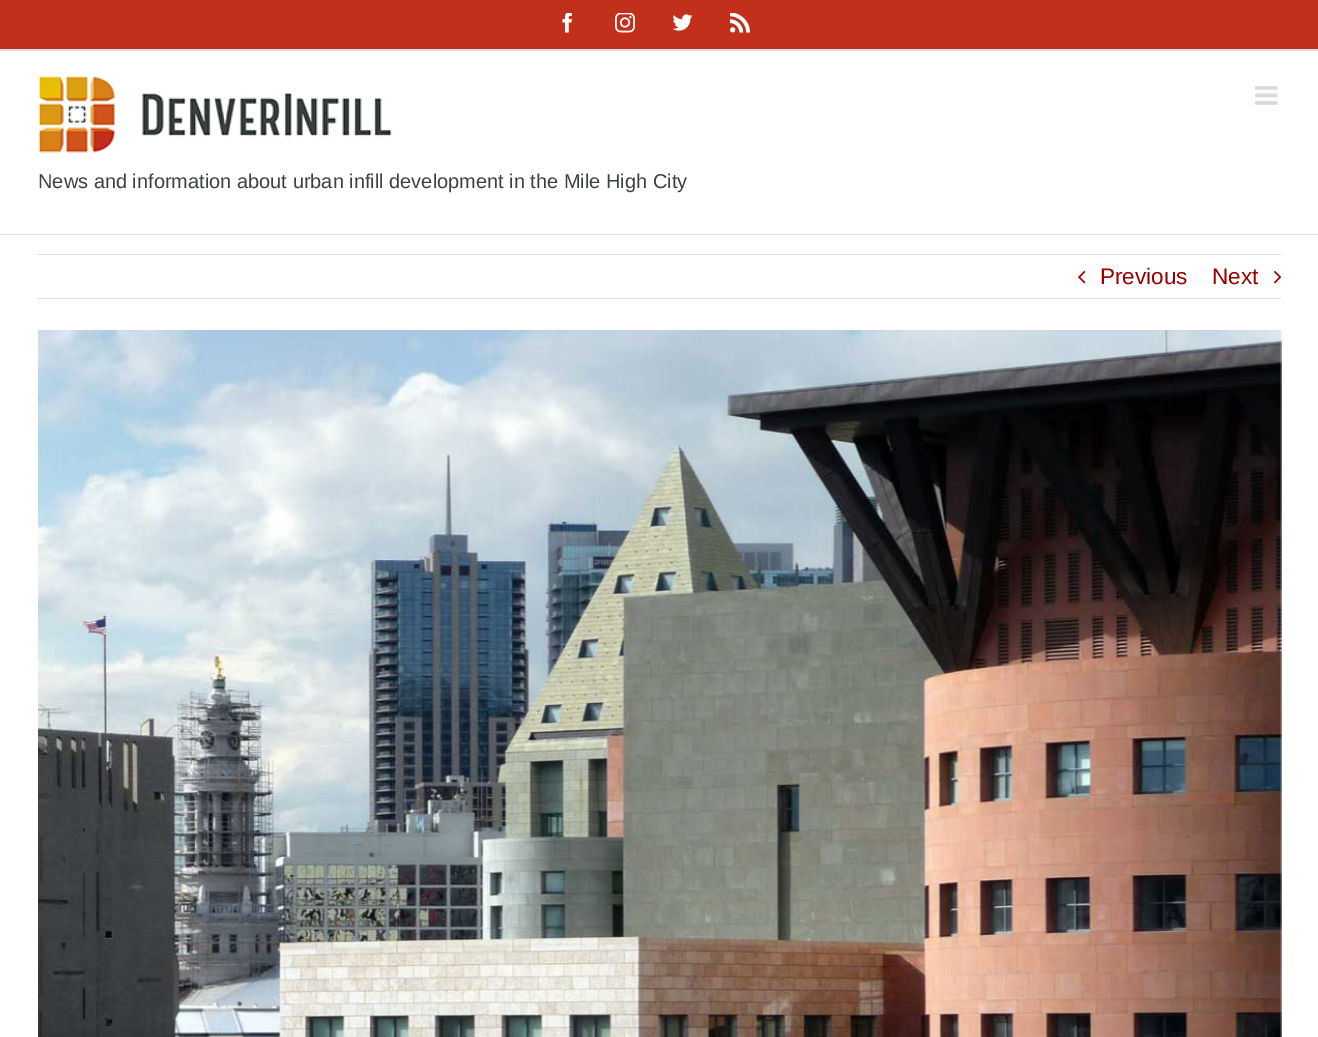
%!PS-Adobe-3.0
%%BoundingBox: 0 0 1318 1037
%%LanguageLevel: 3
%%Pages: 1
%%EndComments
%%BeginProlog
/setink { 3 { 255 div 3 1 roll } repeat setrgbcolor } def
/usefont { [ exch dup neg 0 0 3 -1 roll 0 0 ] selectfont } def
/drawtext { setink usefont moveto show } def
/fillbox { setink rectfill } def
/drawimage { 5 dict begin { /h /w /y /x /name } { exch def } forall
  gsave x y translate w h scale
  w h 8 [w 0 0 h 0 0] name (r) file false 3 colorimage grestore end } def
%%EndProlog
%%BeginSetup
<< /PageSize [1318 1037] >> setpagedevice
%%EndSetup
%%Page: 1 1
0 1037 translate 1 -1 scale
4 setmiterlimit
0 0 1318 1037 255 255 255 fillbox
0 0 1318 49 194 47 27 fillbox
0 49 1318 2 225 225 225 fillbox
(assets/img1.rgb) 562 13 10 20 drawimage
(assets/img2.rgb) 615 13 20 20 drawimage
(assets/img3.rgb) 672 14 21 17 drawimage
(assets/img4.rgb) 730 13 20 20 drawimage
0 234 1318 1 225 225 225 fillbox
(assets/img5.rgb) 1255 86 23 19 drawimage
(assets/img6.rgb) 38 76 354 77 drawimage
(News and information about urban infill development in the Mile High City) 38 188 /LiberationSans-Regular 20 60 66 66 drawtext
38 254 1243 1 224 222 222 fillbox
38 298 1243 1 224 222 222 fillbox
(assets/img7.rgb) 1078 270 8 14 drawimage
(Previous) 1100 284 /LiberationSans-Regular 22.5 153 0 0 drawtext
(Next) 1212 284 /LiberationSans-Regular 22.5 153 0 0 drawtext
(assets/img8.rgb) 1274 271 8 13 drawimage
(assets/img9.rgb) 38 330 1244 707 drawimage
showpage
%%EOF
